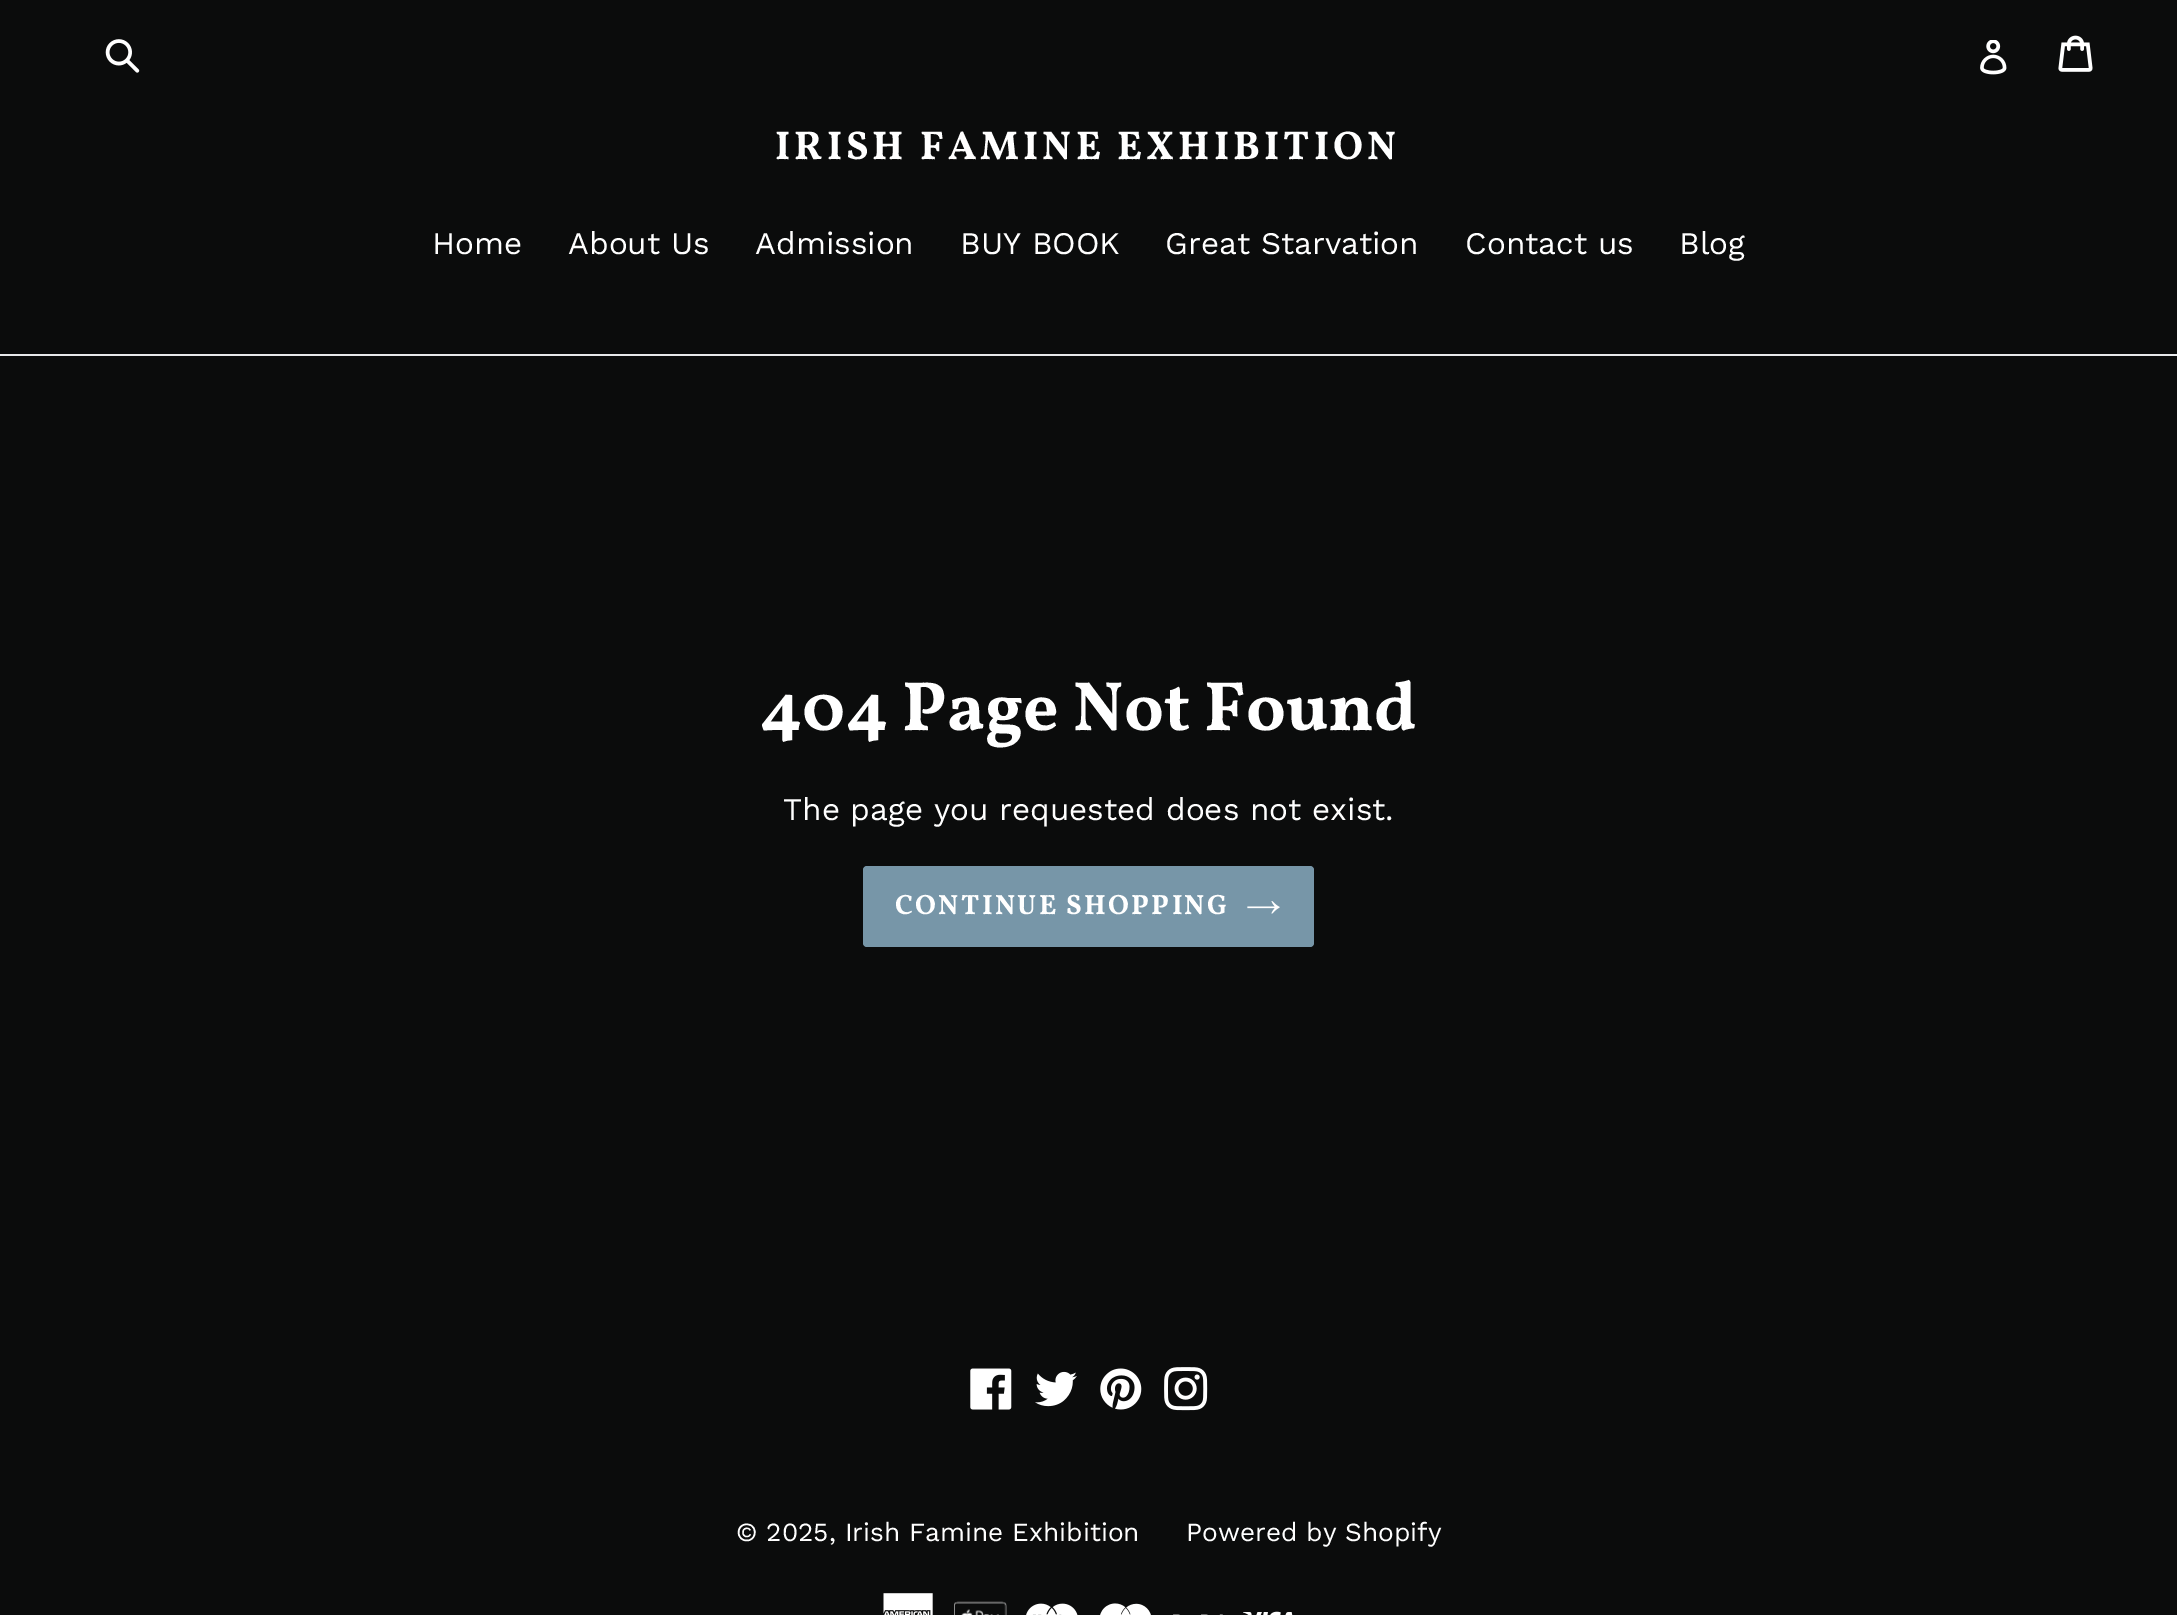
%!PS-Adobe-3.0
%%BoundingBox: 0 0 2177 1615
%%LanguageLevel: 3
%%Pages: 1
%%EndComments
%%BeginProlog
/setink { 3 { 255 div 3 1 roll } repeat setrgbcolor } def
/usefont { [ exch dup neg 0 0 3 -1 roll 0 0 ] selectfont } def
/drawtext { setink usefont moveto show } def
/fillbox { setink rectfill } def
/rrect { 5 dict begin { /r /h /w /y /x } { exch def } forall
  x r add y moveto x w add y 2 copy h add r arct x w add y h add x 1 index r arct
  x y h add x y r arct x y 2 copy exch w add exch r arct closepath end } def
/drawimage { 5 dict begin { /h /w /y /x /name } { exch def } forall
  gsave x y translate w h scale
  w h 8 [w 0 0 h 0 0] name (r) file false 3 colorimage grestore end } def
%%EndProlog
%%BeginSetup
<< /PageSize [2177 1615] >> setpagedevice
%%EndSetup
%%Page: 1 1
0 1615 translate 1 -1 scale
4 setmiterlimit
0 0 2177 1615 11 12 12 fillbox
(assets/img1.rgb) 105 39 35 34 drawimage
(assets/img2.rgb) 1980 40 27 35 drawimage
(assets/img3.rgb) 2058 35 35 37 drawimage
/Vollkorn-Bold 40.25 usefont
255 255 255 setink
775 159 moveto 4 0 (IRISH FAMINE EXHIBITION) ashow
0 354 2177 2 232 233 235 fillbox
(Home) 432 254 /WorkSans-Regular 31.5 255 255 255 drawtext
(About Us) 568 254 /WorkSans-Regular 31.5 255 255 255 drawtext
(Admission) 755 254 /WorkSans-Regular 31.5 255 255 255 drawtext
(BUY BOOK) 960 254 /WorkSans-Regular 31.5 255 255 255 drawtext
(Great Starvation) 1165 254 /WorkSans-Regular 31.5 255 255 255 drawtext
(Contact us) 1465 254 /WorkSans-Regular 31.5 255 255 255 drawtext
(Blog) 1679 254 /WorkSans-Regular 31.5 255 255 255 drawtext
(404 Page Not Found) 760 730 /Vollkorn-Bold 70 255 255 255 drawtext
(The page you requested does not exist.) 783 820 /WorkSans-Regular 31.5 255 255 255 drawtext
119 150 168 setink
863 866 451 81 4 rrect fill
/Vollkorn-Bold 28 usefont
255 255 255 setink
895 914 moveto 2.25 0 (CONTINUE SHOPPING) ashow
(assets/img4.rgb) 1247 901 33 13 drawimage
(assets/img5.rgb) 970 1368 42 42 drawimage
(assets/img6.rgb) 1035 1371 42 36 drawimage
(assets/img7.rgb) 1100 1368 42 42 drawimage
(assets/img8.rgb) 1164 1367 44 44 drawimage
(© 2025, Irish Famine Exhibition) 736 1541 /WorkSans-Regular 26.25 255 255 255 drawtext
(Powered by Shopify) 1186 1541 /WorkSans-Regular 26.25 255 255 255 drawtext
(assets/img9.rgb) 883 1593 50 22 drawimage
(assets/img10.rgb) 954 1601 53 14 drawimage
(assets/img11.rgb) 1026 1603 52 12 drawimage
(assets/img12.rgb) 1100 1603 51 12 drawimage
(assets/img13.rgb) 1173 1614 50 1 drawimage
(assets/img14.rgb) 1243 1611 50 4 drawimage
showpage
%%EOF
